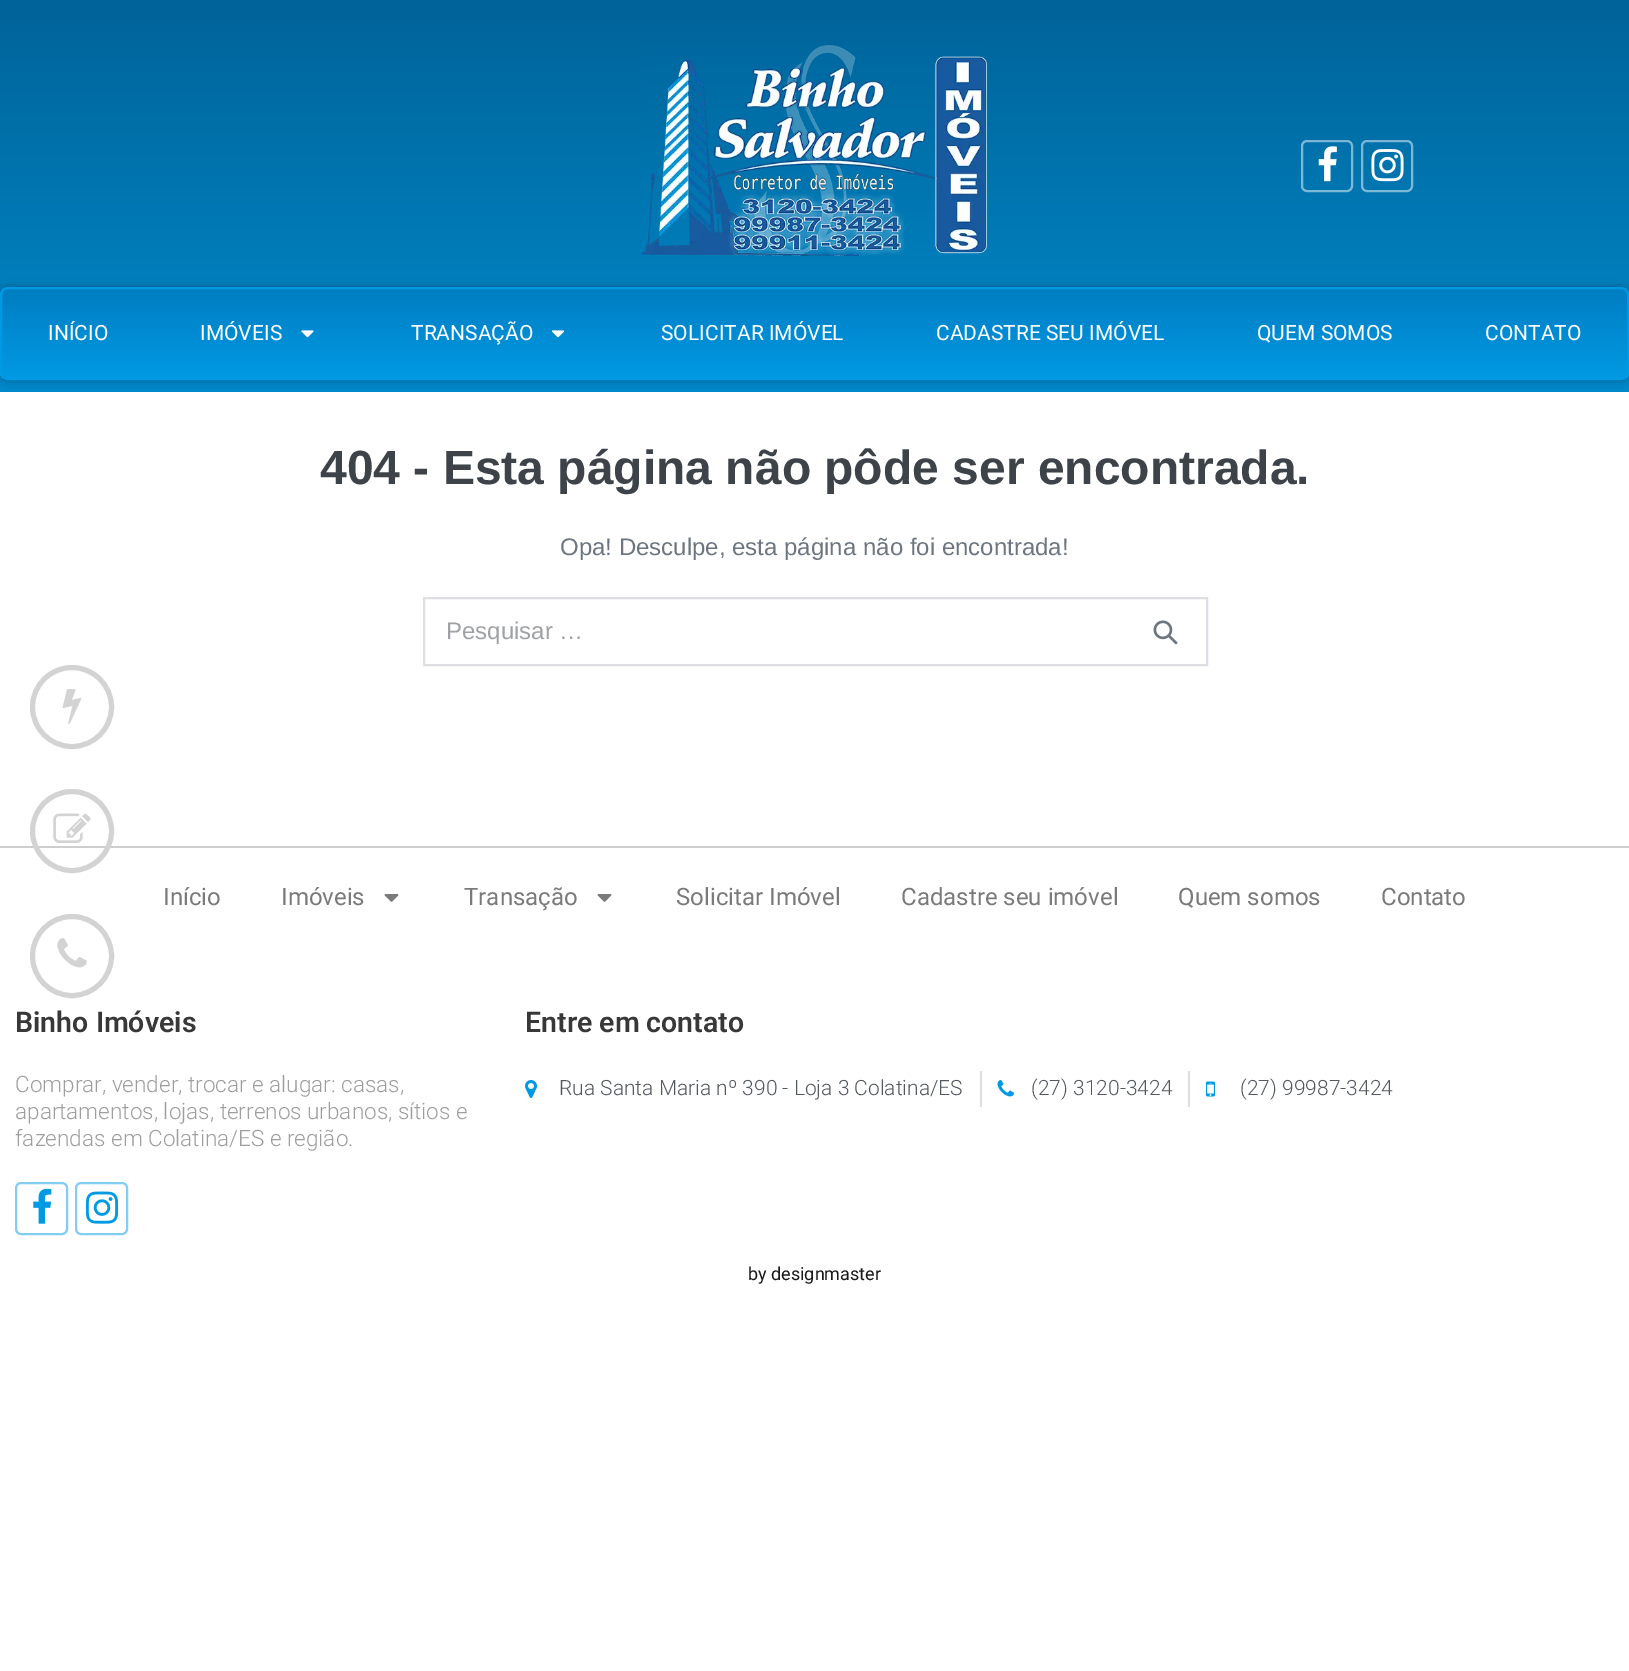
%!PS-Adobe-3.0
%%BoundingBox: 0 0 1629 1671
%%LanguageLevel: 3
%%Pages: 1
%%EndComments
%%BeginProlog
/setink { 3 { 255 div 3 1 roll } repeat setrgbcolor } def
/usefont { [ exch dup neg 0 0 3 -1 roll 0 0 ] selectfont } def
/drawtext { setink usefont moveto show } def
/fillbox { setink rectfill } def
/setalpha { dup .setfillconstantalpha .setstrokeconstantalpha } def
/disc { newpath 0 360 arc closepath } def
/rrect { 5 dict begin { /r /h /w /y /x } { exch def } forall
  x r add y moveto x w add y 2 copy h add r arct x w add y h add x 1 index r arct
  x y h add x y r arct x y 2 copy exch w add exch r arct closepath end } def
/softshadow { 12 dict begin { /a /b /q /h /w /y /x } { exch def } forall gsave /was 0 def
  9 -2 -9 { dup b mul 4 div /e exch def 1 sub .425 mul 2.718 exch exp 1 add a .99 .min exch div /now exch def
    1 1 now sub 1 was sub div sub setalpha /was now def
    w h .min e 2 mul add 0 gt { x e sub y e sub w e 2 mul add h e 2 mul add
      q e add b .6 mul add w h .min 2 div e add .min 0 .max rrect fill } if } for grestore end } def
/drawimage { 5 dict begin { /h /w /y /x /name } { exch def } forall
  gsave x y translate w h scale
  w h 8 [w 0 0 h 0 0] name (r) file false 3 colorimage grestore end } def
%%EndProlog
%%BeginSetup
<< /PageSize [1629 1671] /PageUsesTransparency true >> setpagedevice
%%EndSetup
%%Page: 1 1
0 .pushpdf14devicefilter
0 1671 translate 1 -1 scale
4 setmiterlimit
0 0 1629 1671 255 255 255 fillbox
gsave 0 0 moveto 1629 0 lineto 1629 392 lineto 0 392 lineto closepath clip newpath
<< /ShadingType 2 /ColorSpace /DeviceRGB /Coords [815 0 815 392] /Extend [true true] /Function << /FunctionType 2 /Domain [0 1] /C0 [0 0.388 0.6] /C1 [0 0.537 0.788] /N 1 >> >> shfill grestore
(assets/img1.rgb) 642 45 345 211 drawimage
0.49 setalpha
2 setlinewidth
1302 141 50 50 5 rrect stroke
1 setalpha
(assets/img2.rgb) 1318 146 19 36 drawimage
0.49 setalpha
1362 141 50 50 5 rrect stroke
1 setalpha
(assets/img3.rgb) 1371 149 33 33 drawimage
0 0 0 setink
0 287 1629 93 8 4 0.31 softshadow
gsave
0 287 1629 93 8 rrect clip newpath
gsave 0 288 moveto 1629 288 lineto 1629 378 lineto 0 378 lineto closepath clip newpath
<< /ShadingType 2 /ColorSpace /DeviceRGB /Coords [815 288 815 378] /Extend [true true] /Function << /FunctionType 2 /Domain [0 1] /C0 [0 0.49 0.757] /C1 [0 0.6 0.89] /N 1 >> >> shfill grestore
grestore
0 153 227 setink
1 288 1627 91 7 rrect stroke
(INÍCIO) 48 340 /Roboto-Regular 21 255 255 255 drawtext
(IMÓVEIS) 200 340 /Roboto-Regular 21 255 255 255 drawtext
(assets/img4.rgb) 301 330 13 8 drawimage
(TRANSAÇÃO) 411 340 /Roboto-Regular 21 255 255 255 drawtext
(assets/img5.rgb) 551 330 14 8 drawimage
(SOLICITAR IMÓVEL) 661 340 /Roboto-Regular 21 255 255 255 drawtext
(CADASTRE SEU IMÓVEL) 936 340 /Roboto-Regular 21 255 255 255 drawtext
(QUEM SOMOS) 1257 340 /Roboto-Regular 21 255 255 255 drawtext
(CONTATO) 1485 340 /Roboto-Regular 21 255 255 255 drawtext
(404 - Esta página não pôde ser encontrada.) 320 484 /LiberationSans-Bold 48 62 67 73 drawtext
(Opa! Desculpe, esta página não foi encontrada!) 560 555 /LiberationSans-Regular 24 109 118 128 drawtext
222 222 229 setink
424 598 783 67 rectstroke
(Pesquisar …) 446 639 /LiberationSans-Regular 24 159 161 164 drawtext
(assets/img6.rgb) 1153 620 25 25 drawimage
0 846 1629 2 206 206 206 fillbox
(Início) 163 905 /Roboto-Regular 24 122 122 122 drawtext
(Imóveis) 281 905 /Roboto-Regular 24 122 122 122 drawtext
(assets/img7.rgb) 384 894 15 8 drawimage
(Transação) 464 905 /Roboto-Regular 24 122 122 122 drawtext
(assets/img7.rgb) 597 894 15 8 drawimage
(Solicitar Imóvel) 676 905 /Roboto-Regular 24 122 122 122 drawtext
(Cadastre seu imóvel) 901 905 /Roboto-Regular 24 122 122 122 drawtext
(Quem somos) 1178 905 /Roboto-Regular 24 122 122 122 drawtext
(Contato) 1381 905 /Roboto-Regular 24 122 122 122 drawtext
(Binho Imóveis) 15 1032 /Roboto-SemiBold 28.5 56 56 56 drawtext
(Comprar, vender, trocar e alugar: casas,) 15 1092 /Roboto-Light 22.5 158 158 158 drawtext
(apartamentos, lojas, terrenos urbanos, sítios e) 15 1119 /Roboto-Light 22.5 158 158 158 drawtext
(fazendas em Colatina/ES e região.) 15 1146 /Roboto-Light 22.5 158 158 158 drawtext
130 205 241 setink
16 1183 51 51 5 rrect stroke
(assets/img8.rgb) 33 1188 19 36 drawimage
76 1183 51 51 5 rrect stroke
(assets/img9.rgb) 85 1191 34 33 drawimage
(Entre em contato) 525 1032 /Roboto-SemiBold 28.5 56 56 56 drawtext
(assets/img10.rgb) 525 1080 12 18 drawimage
(Rua Santa Maria nº 390 - Loja 3 Colatina/ES) 559 1095 /Roboto-Light 21 84 89 95 drawtext
980 1071 2 36 221 221 221 fillbox
(assets/img11.rgb) 997 1080 17 17 drawimage
(\(27\) 3120-3424) 1031 1095 /Roboto-Light 21 84 89 95 drawtext
1188 1071 2 36 221 221 221 fillbox
(assets/img12.rgb) 1206 1081 9 16 drawimage
(\(27\) 99987-3424) 1240 1095 /Roboto-Light 21 84 89 95 drawtext
(by designmaster) 748 1280 /Roboto-Regular 18 25 25 25 drawtext
211 211 211 setink
5 setlinewidth
72 707 39.5 disc stroke
(assets/img13.rgb) 62 689 20 35 drawimage
72 831 39.5 disc stroke
(assets/img14.rgb) 53 813 38 30 drawimage
72 956 39.5 disc stroke
(assets/img15.rgb) 57 938 30 30 drawimage
.poppdf14devicefilter showpage
%%EOF
